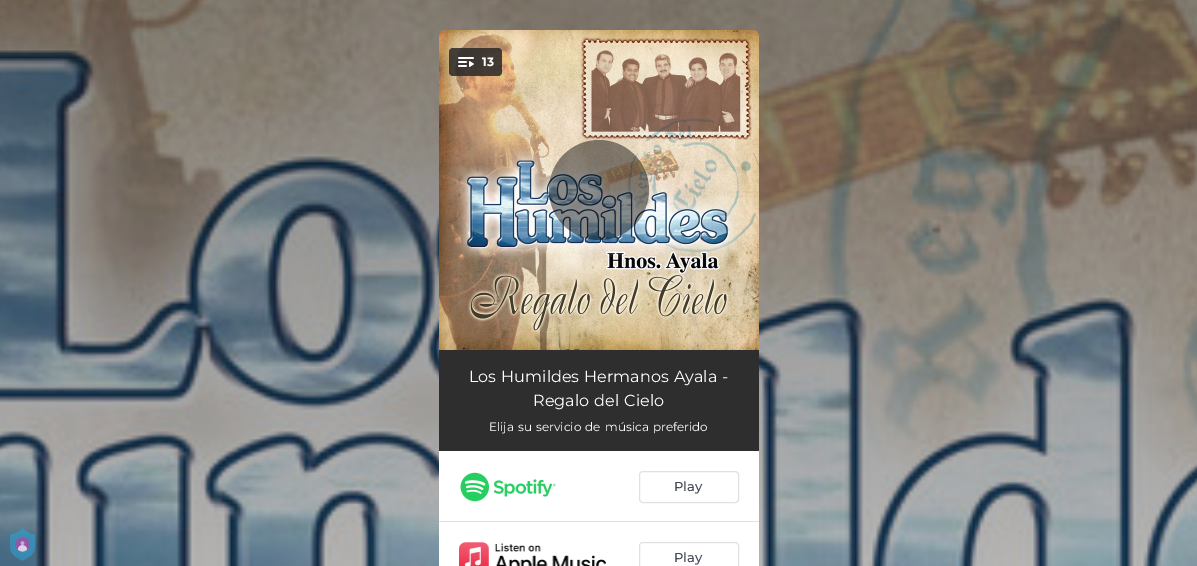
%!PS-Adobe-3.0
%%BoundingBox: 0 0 1197 566
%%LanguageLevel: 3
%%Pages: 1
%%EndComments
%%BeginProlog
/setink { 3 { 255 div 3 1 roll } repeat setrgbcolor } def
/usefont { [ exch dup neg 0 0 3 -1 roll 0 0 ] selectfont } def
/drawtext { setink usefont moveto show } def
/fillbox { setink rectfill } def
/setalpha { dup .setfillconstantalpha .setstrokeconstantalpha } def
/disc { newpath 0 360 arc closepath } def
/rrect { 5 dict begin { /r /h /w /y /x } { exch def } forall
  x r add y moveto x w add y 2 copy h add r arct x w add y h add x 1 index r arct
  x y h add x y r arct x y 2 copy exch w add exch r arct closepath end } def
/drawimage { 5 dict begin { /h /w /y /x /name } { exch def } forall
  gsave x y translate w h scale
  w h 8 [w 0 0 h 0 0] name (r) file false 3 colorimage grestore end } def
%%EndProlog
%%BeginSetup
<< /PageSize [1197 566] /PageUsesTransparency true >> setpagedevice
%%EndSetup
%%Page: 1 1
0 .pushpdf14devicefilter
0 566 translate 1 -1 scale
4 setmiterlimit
0 0 1197 566 255 255 255 fillbox
(assets/img2.rgb) 0 0 1197 566 drawimage
(assets/img1.rgb) 10 528 25 33 drawimage
(assets/img3.rgb) 439 30 320 320 drawimage
0.85 setalpha
40 40 40 setink
449 48 53 28 4 rrect fill
1 setalpha
(assets/img4.rgb) 458 57 16 10 drawimage
(13) 482 66 /Montserrat-Bold 12 255 255 255 drawtext
0.45 setalpha
0 0 0 setink
599 190 50 disc fill
1 setalpha
439 350 320 101 46 46 46 fillbox
/Montserrat-Regular 16 usefont
255 255 255 setink
469 382 moveto 1 0 32 (Los Humildes Hermanos Ayala -) widthshow
533 406 moveto 1 0 32 (Regalo del Cielo) widthshow
/Montserrat-Regular 12 usefont
489 431 moveto 1 0 32 (Elija su servicio de música preferido) widthshow
439 451 320 115 255 255 255 fillbox
439 521 320 1 225 225 228 fillbox
(assets/img5.rgb) 460 472 96 30 drawimage
639.5 471.5 99 31 3.5 rrect stroke
(Play) 674 491 /Montserrat-Medium 13 65 71 84 drawtext
(assets/img6.rgb) 459 542 147 24 drawimage
225 225 228 setink
639.5 542.5 99 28 3.5 rrect stroke
(Play) 674 562 /Montserrat-Medium 13 65 71 84 drawtext
.poppdf14devicefilter showpage
%%EOF
